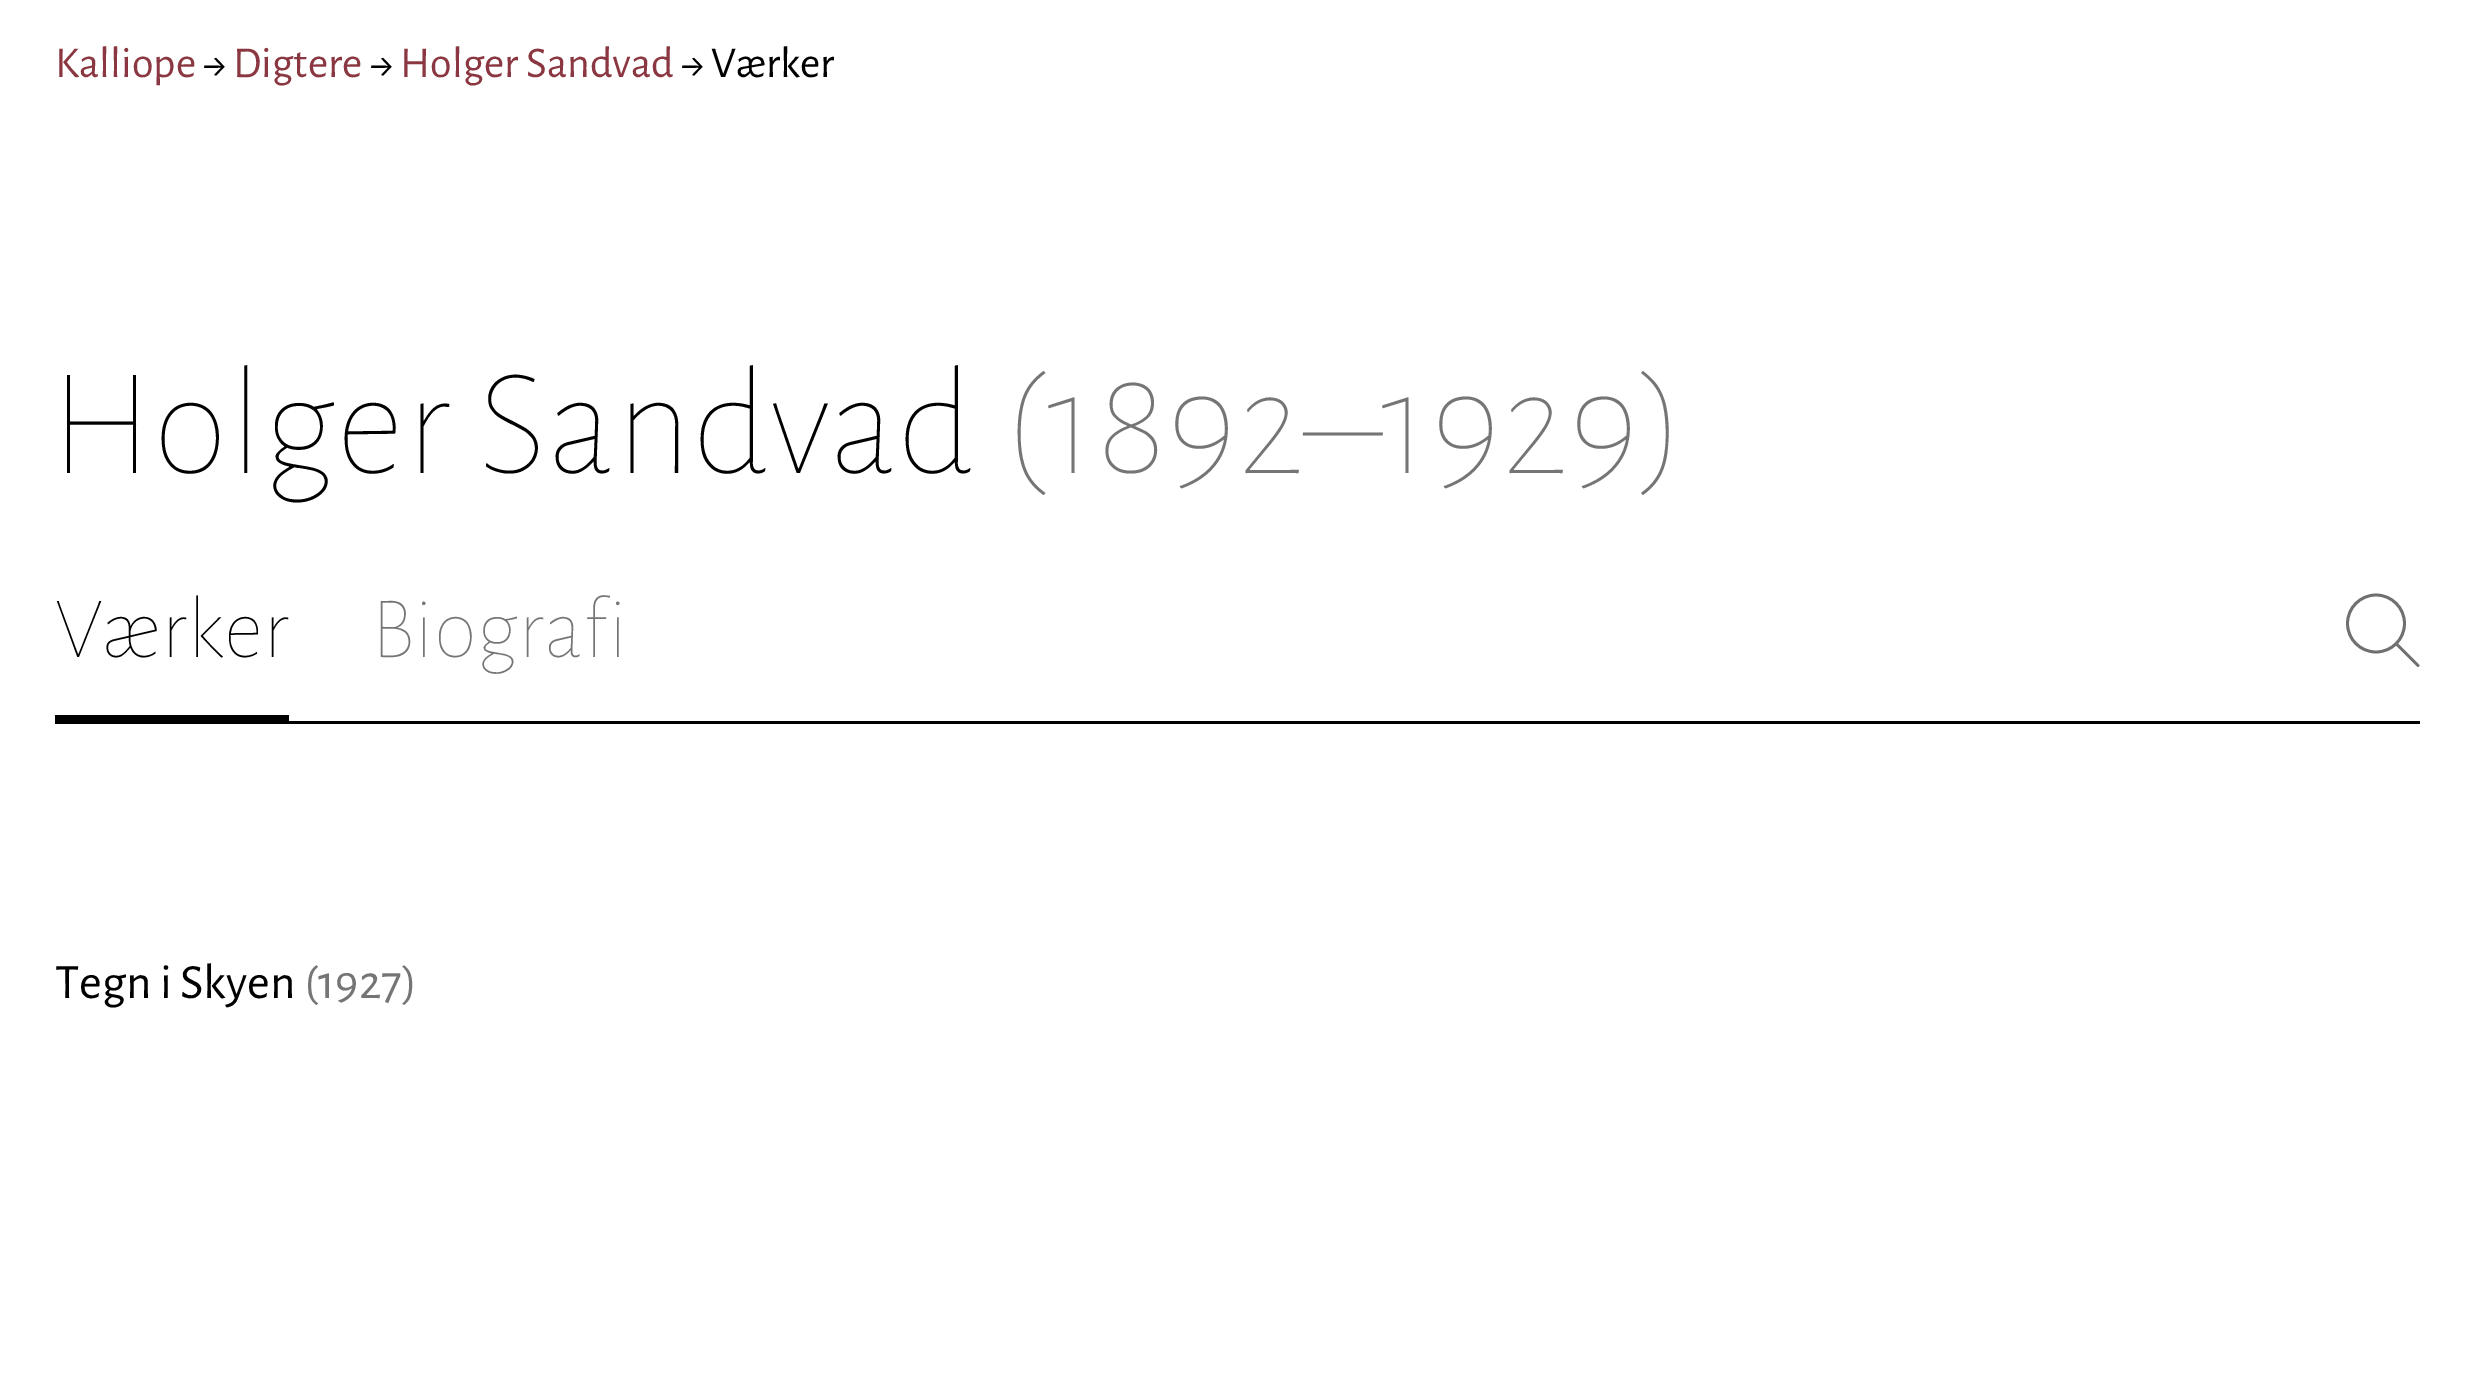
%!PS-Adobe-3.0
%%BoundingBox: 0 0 2474 1395
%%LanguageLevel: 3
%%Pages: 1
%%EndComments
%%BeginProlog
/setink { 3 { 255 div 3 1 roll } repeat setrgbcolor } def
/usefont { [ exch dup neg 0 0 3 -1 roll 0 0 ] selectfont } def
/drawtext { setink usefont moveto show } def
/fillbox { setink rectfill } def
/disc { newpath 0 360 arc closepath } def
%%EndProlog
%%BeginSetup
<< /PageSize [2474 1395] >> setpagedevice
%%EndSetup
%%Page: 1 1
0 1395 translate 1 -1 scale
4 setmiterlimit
0 0 2474 1395 255 255 255 fillbox
(Kalliope) 55 77 /AlegreyaSans-Regular 44 139 55 65 drawtext
(→) 203 77 /AlegreyaSans-Regular 44 0 0 0 drawtext
(Digtere) 233 77 /AlegreyaSans-Regular 44 139 55 65 drawtext
(→) 370 77 /AlegreyaSans-Regular 44 0 0 0 drawtext
(Holger Sandvad) 400 77 /AlegreyaSans-Regular 44 139 55 65 drawtext
(→ Værker) 681 77 /AlegreyaSans-Regular 44 0 0 0 drawtext
(Holger Sandvad) 50 473 /AlegreyaSans-ExtraLight 154 0 0 0 drawtext
(\(1892–1929\)) 1003 473 /AlegreyaSans-ExtraLight 154 117 117 117 drawtext
55 721 2365 3 0 0 0 fillbox
55 715 234 6 0 0 0 fillbox
(Værker) 55 657 /AlegreyaSans-ExtraLight 88 0 0 0 drawtext
(Biografi) 371 657 /AlegreyaSans-ExtraLight 88 117 117 117 drawtext
112 112 112 setink
2.8 setlinewidth
2376 623.5 28.5 disc stroke
1 setlinecap
1 setlinejoin
2418 665.5 moveto 2396.5 644 lineto stroke
(Tegn i Skyen) 55 998 /AlegreyaSans-Regular 49.5 0 0 0 drawtext
(\(1927\)) 304 998 /AlegreyaSans-Regular 49.5 117 117 117 drawtext
showpage
%%EOF
